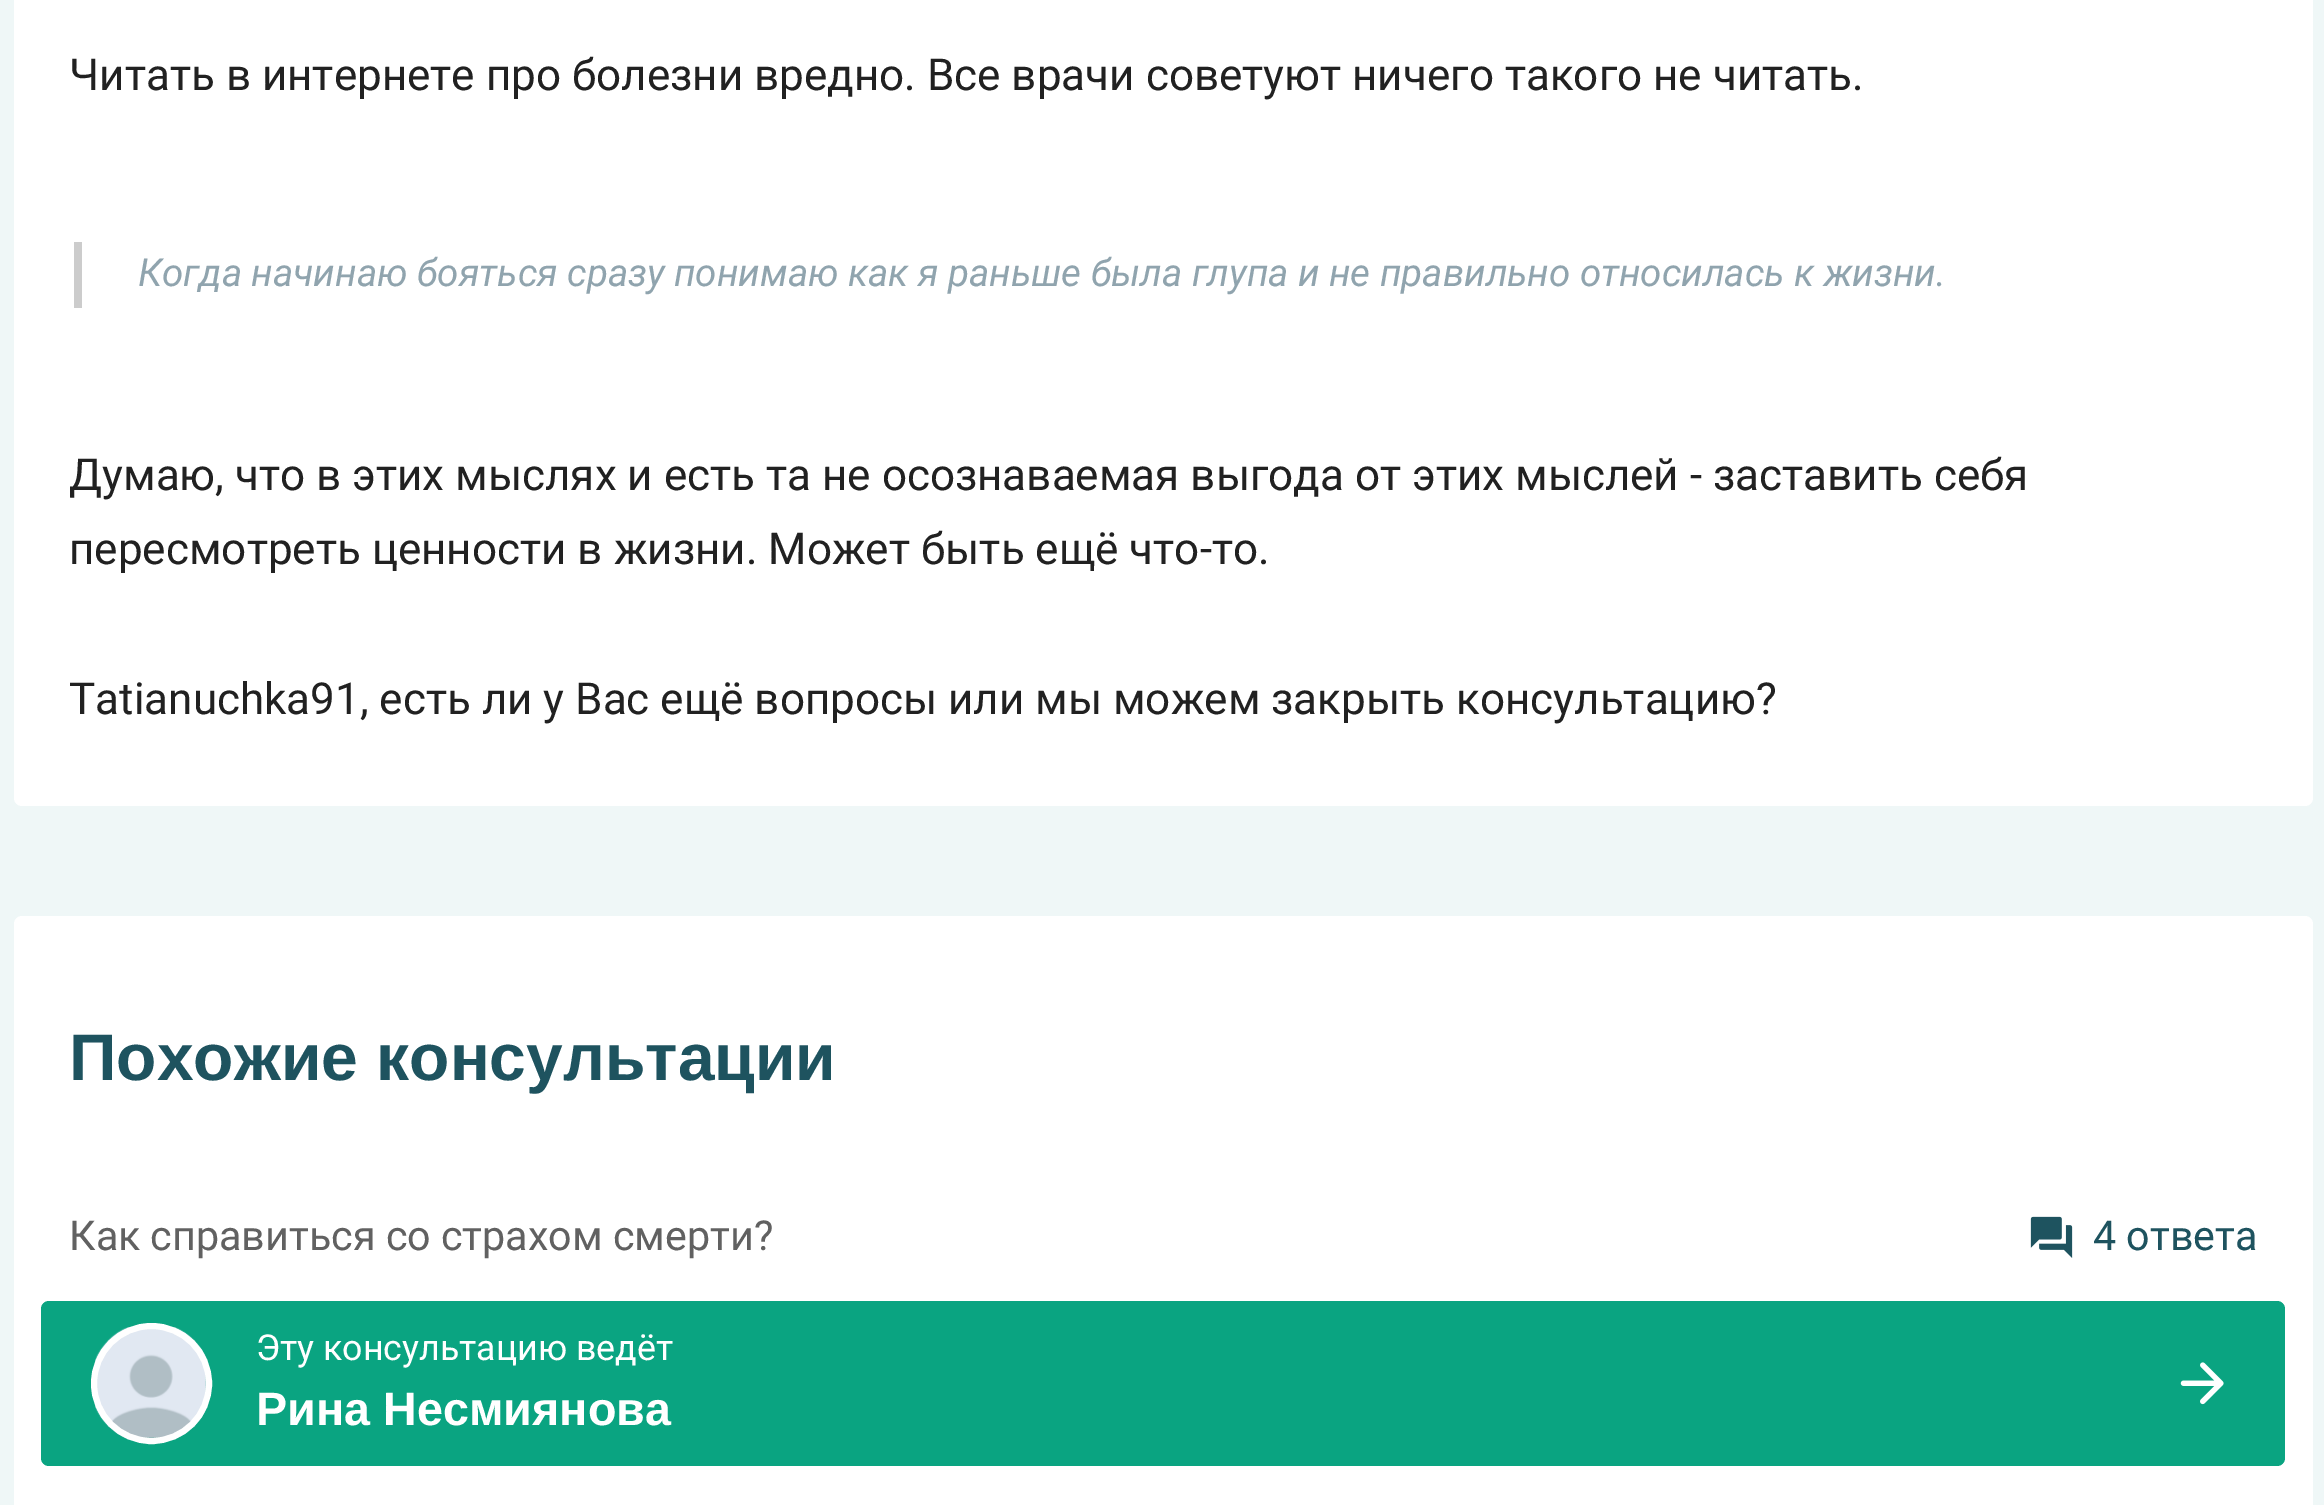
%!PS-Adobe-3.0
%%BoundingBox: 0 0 2324 1505
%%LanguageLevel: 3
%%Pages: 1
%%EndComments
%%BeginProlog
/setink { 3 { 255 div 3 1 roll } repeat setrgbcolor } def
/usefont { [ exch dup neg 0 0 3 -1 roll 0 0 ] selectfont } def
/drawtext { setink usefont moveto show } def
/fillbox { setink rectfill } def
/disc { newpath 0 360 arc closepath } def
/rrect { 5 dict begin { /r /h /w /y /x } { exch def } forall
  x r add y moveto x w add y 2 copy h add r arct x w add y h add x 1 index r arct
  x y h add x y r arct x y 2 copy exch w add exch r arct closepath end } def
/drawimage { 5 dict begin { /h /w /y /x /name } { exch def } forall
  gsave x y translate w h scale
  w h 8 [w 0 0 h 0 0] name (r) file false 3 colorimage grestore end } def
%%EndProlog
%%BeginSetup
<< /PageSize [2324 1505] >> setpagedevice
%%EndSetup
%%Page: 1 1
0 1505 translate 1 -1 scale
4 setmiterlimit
0 0 2324 1505 239 247 247 fillbox
255 255 255 setink
14 -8 2299 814 8 rrect fill
(Читать в интернете про болезни вредно. Все врачи советуют ничего такого не читать.) 69 90 /Roboto-Regular 44 33 33 33 drawtext
74 242 8 66 204 204 204 fillbox
(Когда начинаю бояться сразу понимаю как я раньше была глупа и не правильно относилась к жизни.) 138 286 /Roboto-Italic 38.5 144 164 174 drawtext
(Думаю, что в этих мыслях и есть та не осознаваемая выгода от этих мыслей - заставить себя) 69 490 /Roboto-Regular 44 33 33 33 drawtext
(пересмотреть ценности в жизни. Может быть ещё что-то.) 69 564 /Roboto-Regular 44 33 33 33 drawtext
(Tatianuchka91, есть ли у Вас ещё вопросы или мы можем закрыть консультацию?) 69 714 /Roboto-Regular 44 33 33 33 drawtext
255 255 255 setink
14 916 2299 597 8 rrect fill
(Похожие консультации) 69 1080 /LiberationSans-Bold 66 30 83 95 drawtext
(Как справиться со страхом смерти?) 69 1250 /Roboto-Regular 41.25 97 97 97 drawtext
(assets/img1.rgb) 2030 1216 43 42 drawimage
(4 ответа) 2093 1250 /Roboto-Regular 41.25 30 83 95 drawtext
10 164 129 setink
41 1301 2244 165 8 rrect fill
(assets/img2.rgb) 95 1327 112 112 drawimage
255 255 255 setink
6 setlinewidth
151.5 1383.5 57.5 disc stroke
(Эту консультацию ведёт) 256 1360 /Roboto-Regular 35.75 255 255 255 drawtext
(Рина Несмиянова) 256 1425 /LiberationSans-Bold 46.75 255 255 255 drawtext
(assets/img3.rgb) 2180 1362 44 43 drawimage
showpage
%%EOF
